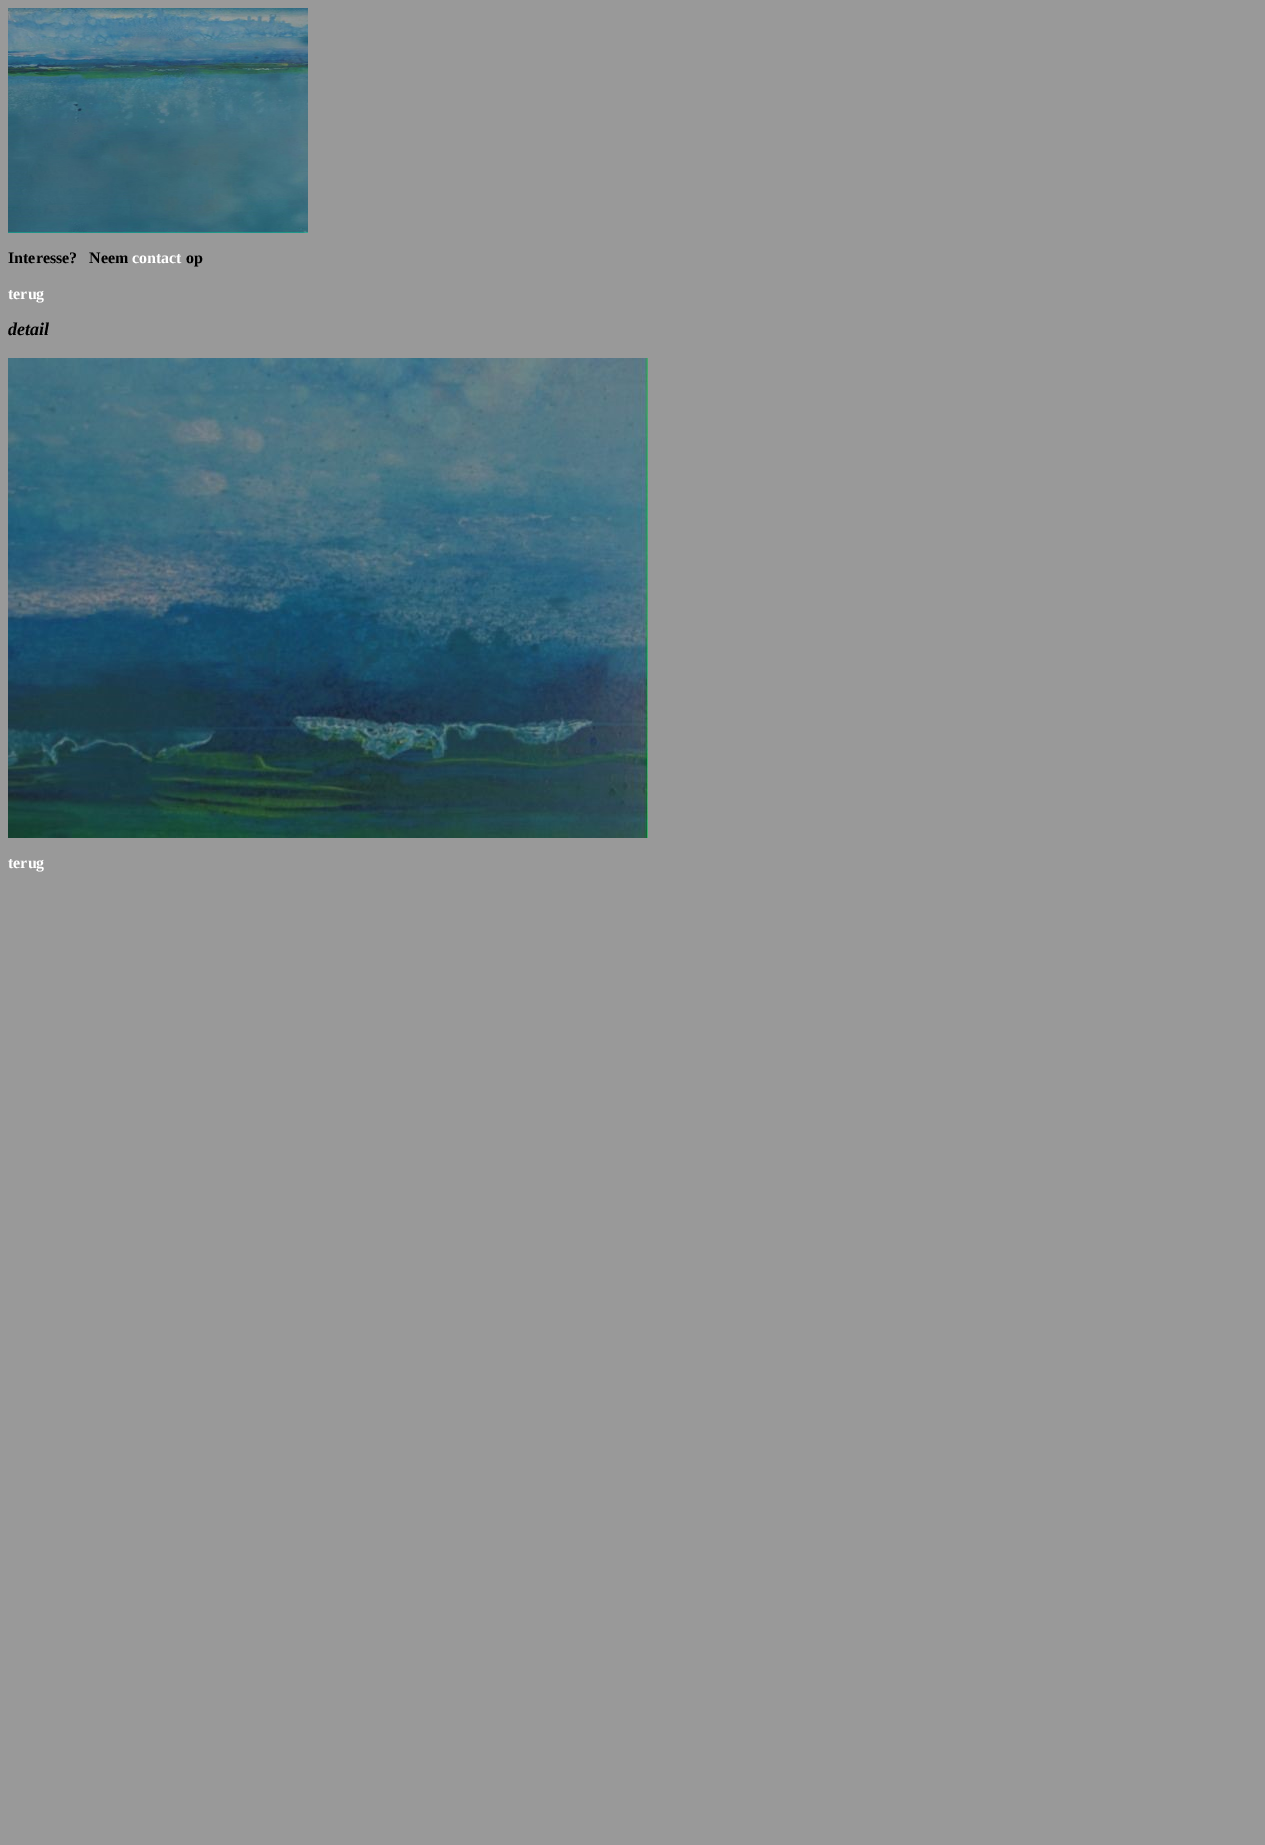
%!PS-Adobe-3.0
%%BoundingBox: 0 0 1265 1845
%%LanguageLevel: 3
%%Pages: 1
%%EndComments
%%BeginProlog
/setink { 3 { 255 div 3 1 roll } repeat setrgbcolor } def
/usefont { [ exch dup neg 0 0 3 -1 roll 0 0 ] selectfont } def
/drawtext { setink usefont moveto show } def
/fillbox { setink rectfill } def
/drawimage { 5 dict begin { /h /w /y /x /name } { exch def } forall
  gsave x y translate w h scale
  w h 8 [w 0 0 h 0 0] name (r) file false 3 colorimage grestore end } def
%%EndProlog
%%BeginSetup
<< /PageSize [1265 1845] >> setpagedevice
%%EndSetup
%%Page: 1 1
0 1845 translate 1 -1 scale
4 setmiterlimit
0 0 1265 1845 153 153 153 fillbox
(assets/img1.rgb) 8 8 300 225 drawimage
(Interesse?   Neem) 8 263 /LiberationSerif-Bold 16 0 0 0 drawtext
(contact) 132 263 /LiberationSerif-Bold 16 255 255 255 drawtext
(op) 186 263 /LiberationSerif-Bold 16 0 0 0 drawtext
(terug) 8 299 /LiberationSerif-Bold 16 255 255 255 drawtext
(detail) 8 335 /LiberationSerif-BoldItalic 18 0 0 0 drawtext
(assets/img2.rgb) 8 358 640 480 drawimage
(terug) 8 868 /LiberationSerif-Bold 16 255 255 255 drawtext
showpage
%%EOF
